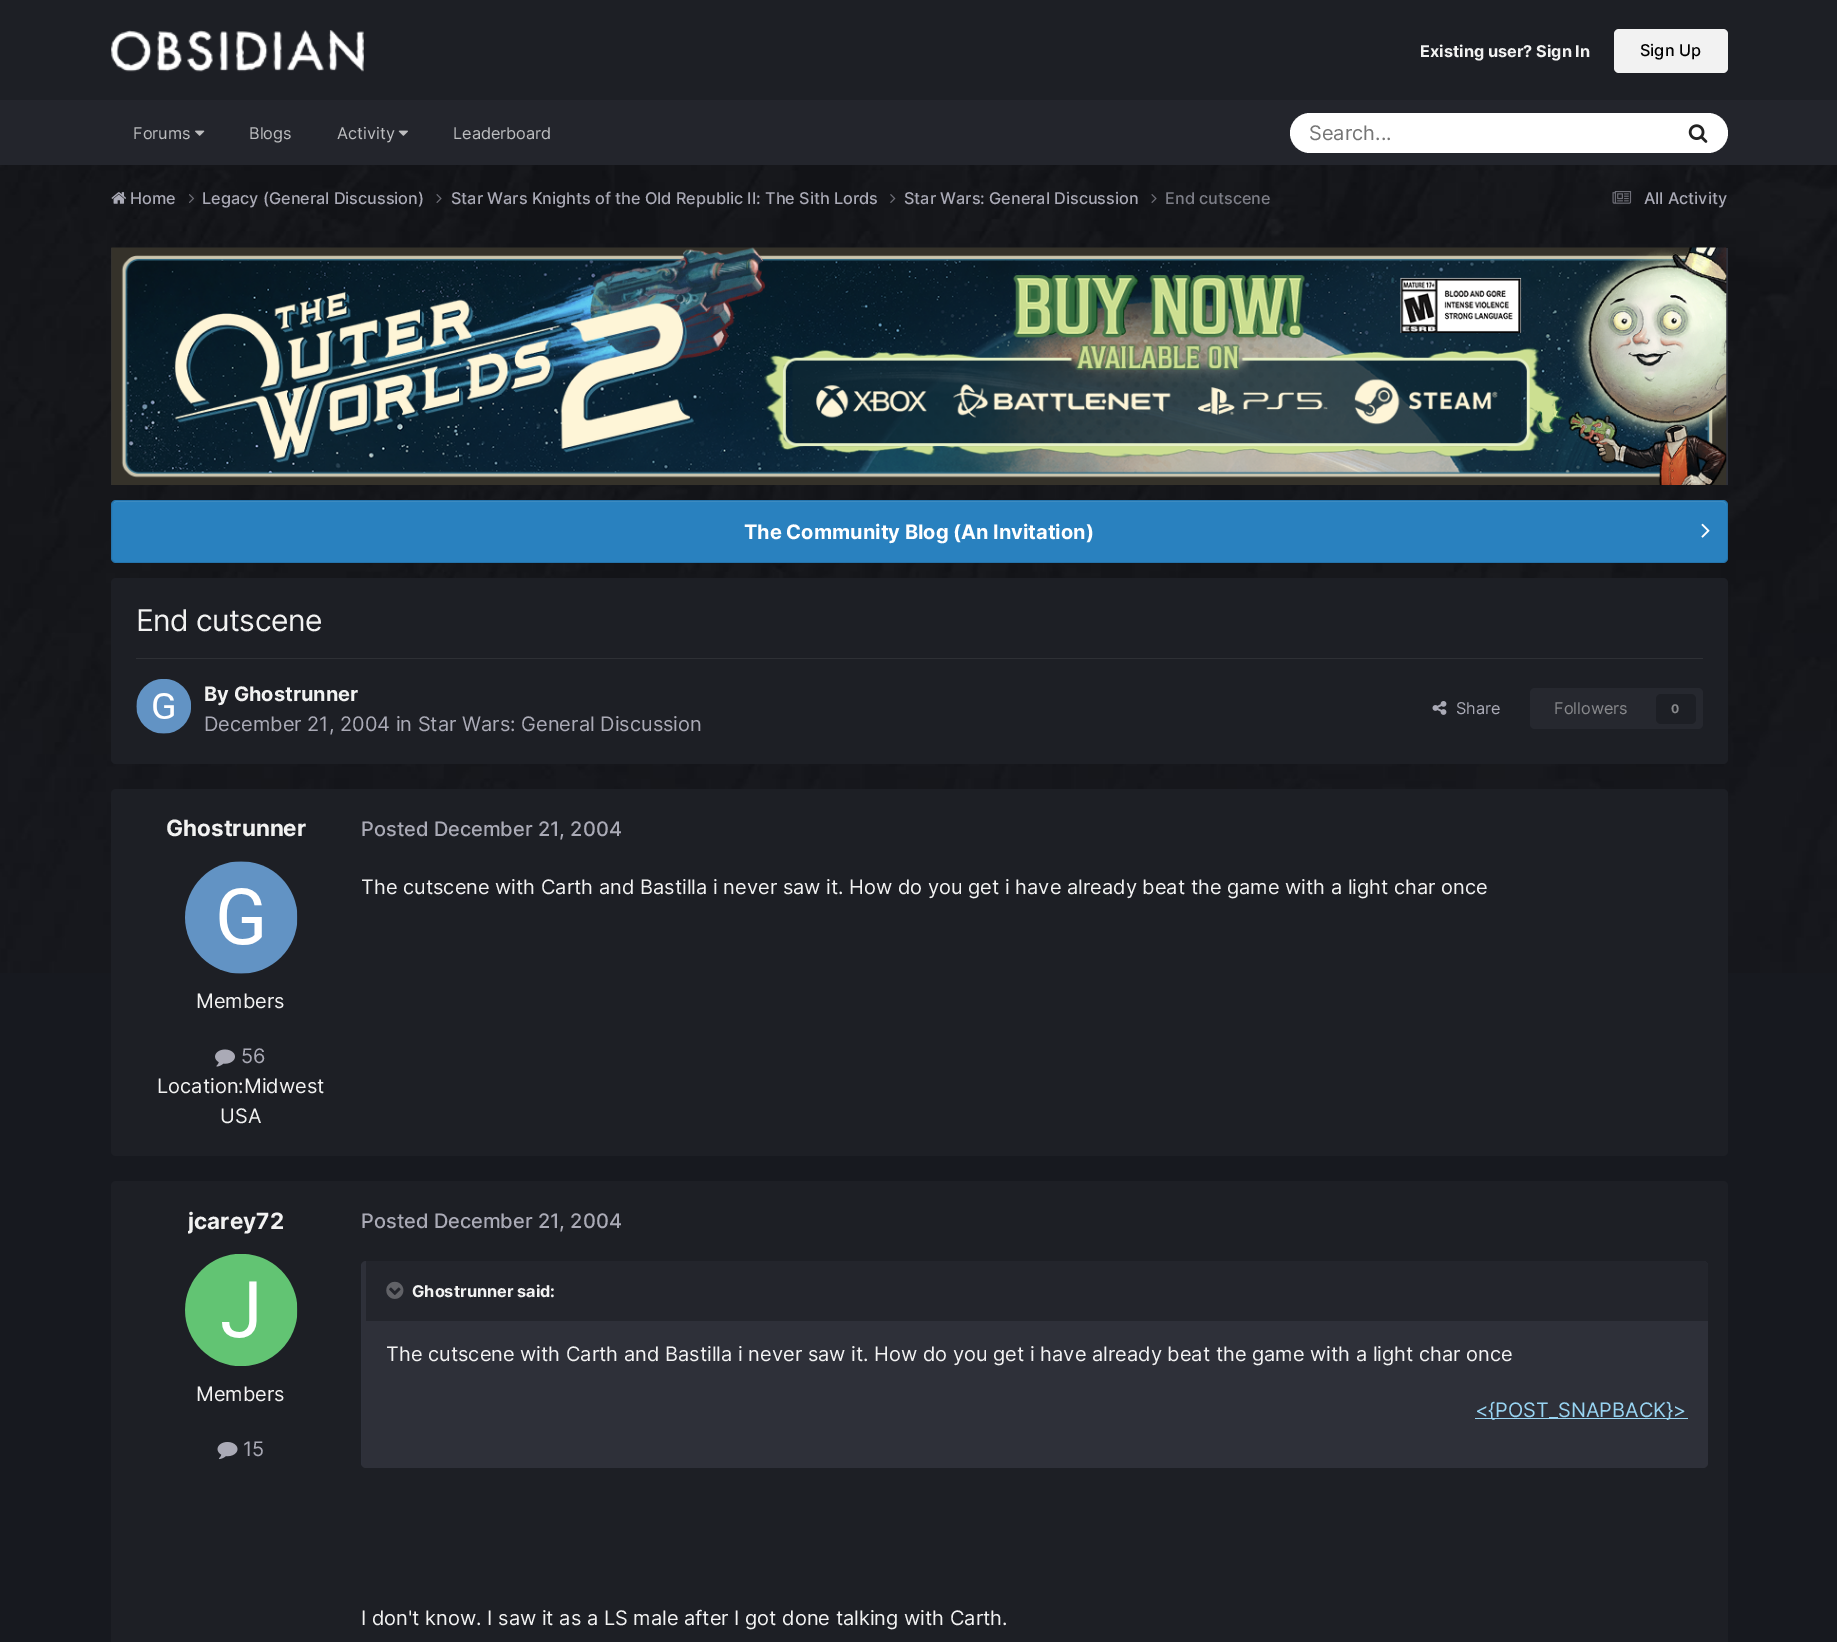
%!PS-Adobe-3.0
%%BoundingBox: 0 0 1837 1642
%%LanguageLevel: 3
%%Pages: 1
%%EndComments
%%BeginProlog
/setink { 3 { 255 div 3 1 roll } repeat setrgbcolor } def
/usefont { [ exch dup neg 0 0 3 -1 roll 0 0 ] selectfont } def
/drawtext { setink usefont moveto show } def
/fillbox { setink rectfill } def
/setalpha { dup .setfillconstantalpha .setstrokeconstantalpha } def
/rrect { 5 dict begin { /r /h /w /y /x } { exch def } forall
  x r add y moveto x w add y 2 copy h add r arct x w add y h add x 1 index r arct
  x y h add x y r arct x y 2 copy exch w add exch r arct closepath end } def
/drawimage { 5 dict begin { /h /w /y /x /name } { exch def } forall
  gsave x y translate w h scale
  w h 8 [w 0 0 h 0 0] name (r) file false 3 colorimage grestore end } def
%%EndProlog
%%BeginSetup
<< /PageSize [1837 1642] /PageUsesTransparency true >> setpagedevice
%%EndSetup
%%Page: 1 1
0 .pushpdf14devicefilter
0 1642 translate 1 -1 scale
4 setmiterlimit
0 0 1837 1642 23 25 31 fillbox
0 0 1837 100 29 31 37 fillbox
(assets/img1.rgb) 111 30 253 42 drawimage
(Existing user? Sign In) 1420 57 /Inter-Bold 16.25 242 242 242 drawtext
1614 29 114 44 5 rrect fill
(Sign Up) 1640 56 /Inter-Medium 16.25 0 0 0 drawtext
0 100 1837 65 35 37 44 fillbox
(Forums) 133 139 /Inter-Regular 16.25 189 190 192 drawtext
(assets/img2.rgb) 195 130 10 6 drawimage
(Blogs) 249 139 /Inter-Regular 16.25 189 190 192 drawtext
(Activity) 337 139 /Inter-Regular 16.25 189 190 192 drawtext
(assets/img3.rgb) 398 130 10 6 drawimage
(Leaderboard) 453 139 /Inter-Regular 16.25 189 190 192 drawtext
255 255 255 setink
1290 113 438 40 20 rrect fill
(Search...) 1309 140 /Inter-Regular 20 117 117 117 drawtext
(assets/img4.rgb) 1688 124 20 19 drawimage
(assets/img5.rgb) 0 165 1837 808 drawimage
(assets/img6.rgb) 111 192 15 12 drawimage
(Home) 130 204 /Inter-Medium 16.25 170 170 182 drawtext
(assets/img7.rgb) 189 194 6 9 drawimage
(Legacy \(General Discussion\)) 202 204 /Inter-Medium 16.25 170 170 182 drawtext
(assets/img8.rgb) 436 194 6 9 drawimage
(Star Wars Knights of the Old Republic II: The Sith Lords) 451 204 /Inter-Medium 16.25 170 170 182 drawtext
(assets/img9.rgb) 890 194 6 9 drawimage
(Star Wars: General Discussion) 904 204 /Inter-Medium 16.25 170 170 182 drawtext
(assets/img10.rgb) 1151 194 6 9 drawimage
(End cutscene) 1165 204 /Inter-Medium 16.25 125 126 135 drawtext
(assets/img11.rgb) 1612 191 20 13 drawimage
(All Activity) 1644 204 /Inter-Medium 16.25 170 170 182 drawtext
111 248 1617 237 46 48 57 fillbox
(assets/img12.rgb) 111 247 1616 238 drawimage
41 129 191 setink
111 500 1617 63 5 rrect fill
62 142 197 setink
116 502 moveto 1722 502 lineto 1725 502 1726 504 1726 506 curveto 1726 505 lineto 1726 503 1724 501 1722 501 curveto 117 501 lineto 116 501 114 502 114 503 curveto closepath fill
0.1 setalpha
0 0 0 setink
111.5 500.5 1616 62 4.5 rrect stroke
1 setalpha
(The Community Blog \(An Invitation\)) 744 539 /Inter-Bold 20 255 255 255 drawtext
(assets/img13.rgb) 1701 523 9 15 drawimage
29 31 37 setink
111 578 1617 186 5 rrect fill
/Inter-Regular 30 usefont
242 242 242 setink
136 631 moveto -0.6 0 (End cutscene) ashow
136 658 1567 1 46 48 53 fillbox
(assets/img14.rgb) 136 679 55 55 drawimage
(By Ghostrunner) 204 701 /Inter-Bold 20 242 242 242 drawtext
(December 21, 2004 in Star Wars: General Discussion) 204 731 /Inter-Regular 20 170 170 182 drawtext
(assets/img15.rgb) 1432 701 15 14 drawimage
(Share) 1456 714 /Inter-Regular 16.25 170 170 182 drawtext
38 40 47 setink
1530 688 173 41 5 rrect fill
(Followers) 1554 714 /Inter-Regular 16.25 136 137 140 drawtext
29 31 37 setink
1656 694 40 30 5 rrect fill
(0) 1671 713 /Inter-Bold 12 136 137 140 drawtext
29 31 37 setink
111 789 1617 367 5 rrect fill
(Ghostrunner) 166 836 /Inter-Bold 22.5 242 242 242 drawtext
(assets/img16.rgb) 185 861 113 113 drawimage
(Members) 196 1008 /Inter-Regular 20 242 242 242 drawtext
(assets/img17.rgb) 215 1049 20 18 drawimage
(56) 241 1063 /Inter-Regular 20 170 170 182 drawtext
(Location:Midwest) 157 1093 /Inter-Regular 20 242 242 242 drawtext
(USA) 220 1123 /Inter-Regular 20 242 242 242 drawtext
(Posted December 21, 2004) 361 836 /Inter-Medium 20 170 170 182 drawtext
(The cutscene with Carth and Bastilla i never saw it. How do you get i have already beat the game with a light char once) 361 894 /Inter-Regular 20 242 242 242 drawtext
29 31 37 setink
111 1181 1617 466 5 rrect fill
gsave
188 1208 96 27 rectclip
(jcarey72) 188 1229 /Inter-Bold 22.5 242 242 242 drawtext
grestore
(assets/img18.rgb) 185 1254 113 112 drawimage
(Members) 196 1401 /Inter-Regular 20 242 242 242 drawtext
(assets/img19.rgb) 217 1442 21 18 drawimage
(15) 243 1456 /Inter-Regular 20 170 170 182 drawtext
(Posted December 21, 2004) 361 1228 /Inter-Medium 20 170 170 182 drawtext
46 48 57 setink
361 1261 1347 207 5 rrect fill
0.15 setalpha
361 1264 1 201 45 55 72 fillbox
1 setalpha
35 37 44 setink
366 1261 moveto 1703 1261 lineto 1706 1261 1708 1263 1708 1266 curveto 1708 1321 lineto 366 1321 lineto closepath fill
(assets/img20.rgb) 386 1281 18 18 drawimage
(Ghostrunner said:) 412 1297 /Inter-Bold 16.25 242 242 242 drawtext
(The cutscene with Carth and Bastilla i never saw it. How do you get i have already beat the game with a light char once) 386 1361 /Inter-Regular 20 242 242 242 drawtext
1475 1418 213 1 152 212 242 fillbox
(<{POST_SNAPBACK}>) 1475 1417 /Inter-Regular 20 152 212 242 drawtext
(I don't know. I saw it as a LS male after I got done talking with Carth.) 361 1625 /Inter-Regular 20 242 242 242 drawtext
.poppdf14devicefilter showpage
%%EOF
